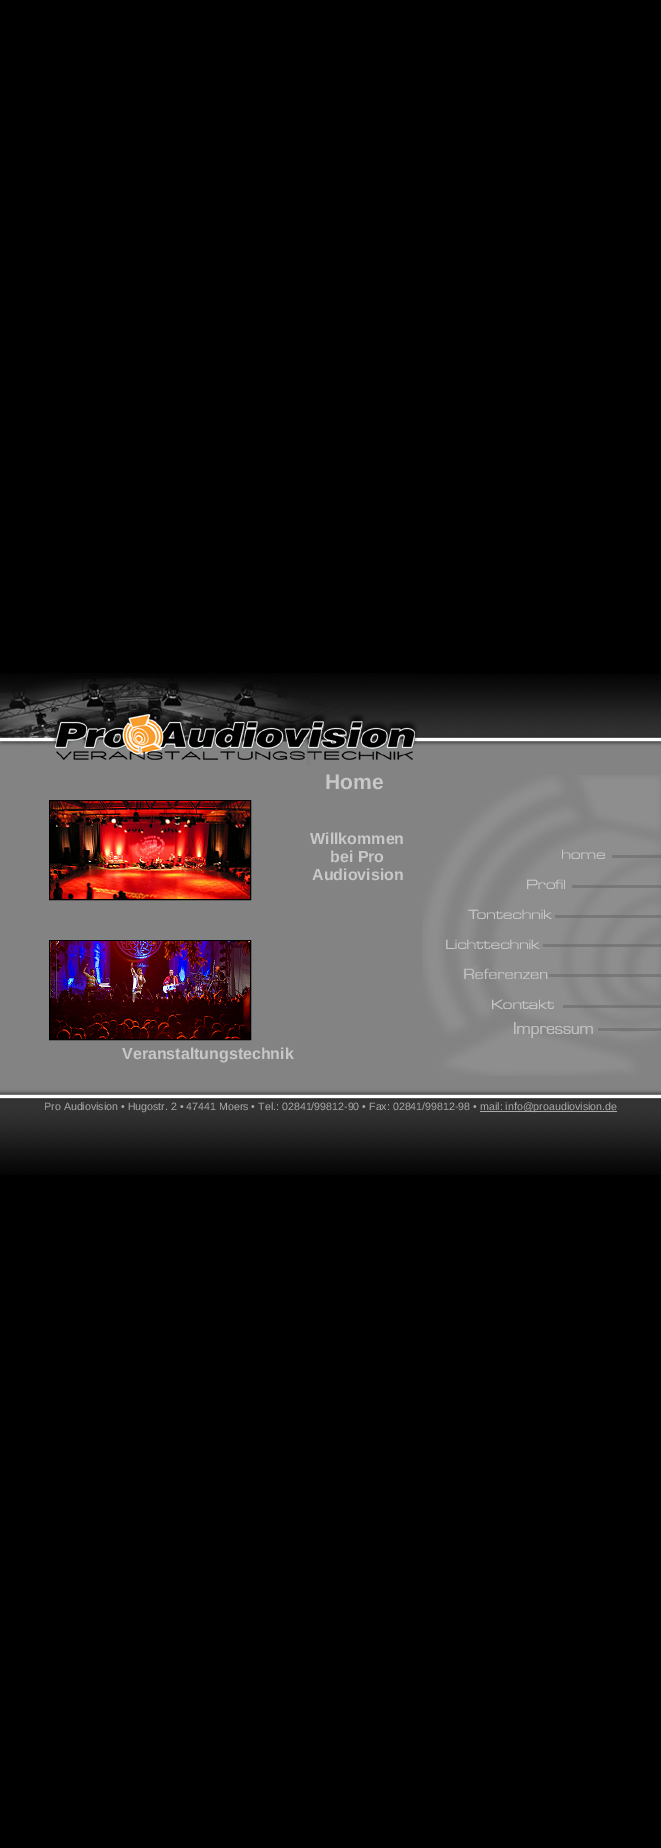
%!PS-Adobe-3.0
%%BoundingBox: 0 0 661 1848
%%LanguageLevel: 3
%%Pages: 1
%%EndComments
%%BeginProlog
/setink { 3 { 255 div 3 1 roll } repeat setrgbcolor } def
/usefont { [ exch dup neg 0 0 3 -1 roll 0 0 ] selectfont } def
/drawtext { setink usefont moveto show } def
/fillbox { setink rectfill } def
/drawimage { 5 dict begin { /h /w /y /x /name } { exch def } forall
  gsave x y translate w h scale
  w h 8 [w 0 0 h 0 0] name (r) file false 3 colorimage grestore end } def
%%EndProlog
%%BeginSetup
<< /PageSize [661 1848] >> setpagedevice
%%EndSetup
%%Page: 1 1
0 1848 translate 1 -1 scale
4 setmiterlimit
0 0 661 1848 0 0 0 fillbox
(assets/img1.rgb) 418 674 243 91 drawimage
(assets/img2.rgb) 0 673 418 92 drawimage
0 765 661 320 131 131 131 fillbox
(Home) 325 789 /LiberationSans-Bold 21 200 200 200 drawtext
(Willkommen) 310 844 /LiberationSans-Bold 16 200 200 200 drawtext
(bei Pro) 330 862 /LiberationSans-Bold 16 200 200 200 drawtext
(Audiovision) 312 880 /LiberationSans-Bold 16 200 200 200 drawtext
(Veranstaltungstechnik) 122 1059 /LiberationSans-Bold 16 200 200 200 drawtext
0 0 0 setink
49.5 800.5 201 99 rectstroke
(assets/img3.rgb) 50 801 200 98 drawimage
49.5 940.5 201 99 rectstroke
(assets/img4.rgb) 50 941 200 98 drawimage
(assets/img5.rgb) 422 775 239 301 drawimage
552 862 3 1 137 137 137 fillbox
(assets/img6.rgb) 446 939 98 10 drawimage
(assets/img7.rgb) 463 965 87 16 drawimage
(assets/img8.rgb) 514 1022 88 16 drawimage
(assets/img9.rgb) 0 1085 661 90 drawimage
(Pro Audiovision • Hugostr. 2 • 47441 Moers • Tel.: 02841/99812-90 • Fax: 02841/99812-98 •) 44 1110 /LiberationSans-Regular 10.65 170 170 170 drawtext
480 1111 137 1 170 170 170 fillbox
(mail: info@proaudiovision.de) 480 1110 /LiberationSans-Regular 10.65 170 170 170 drawtext
showpage
%%EOF
